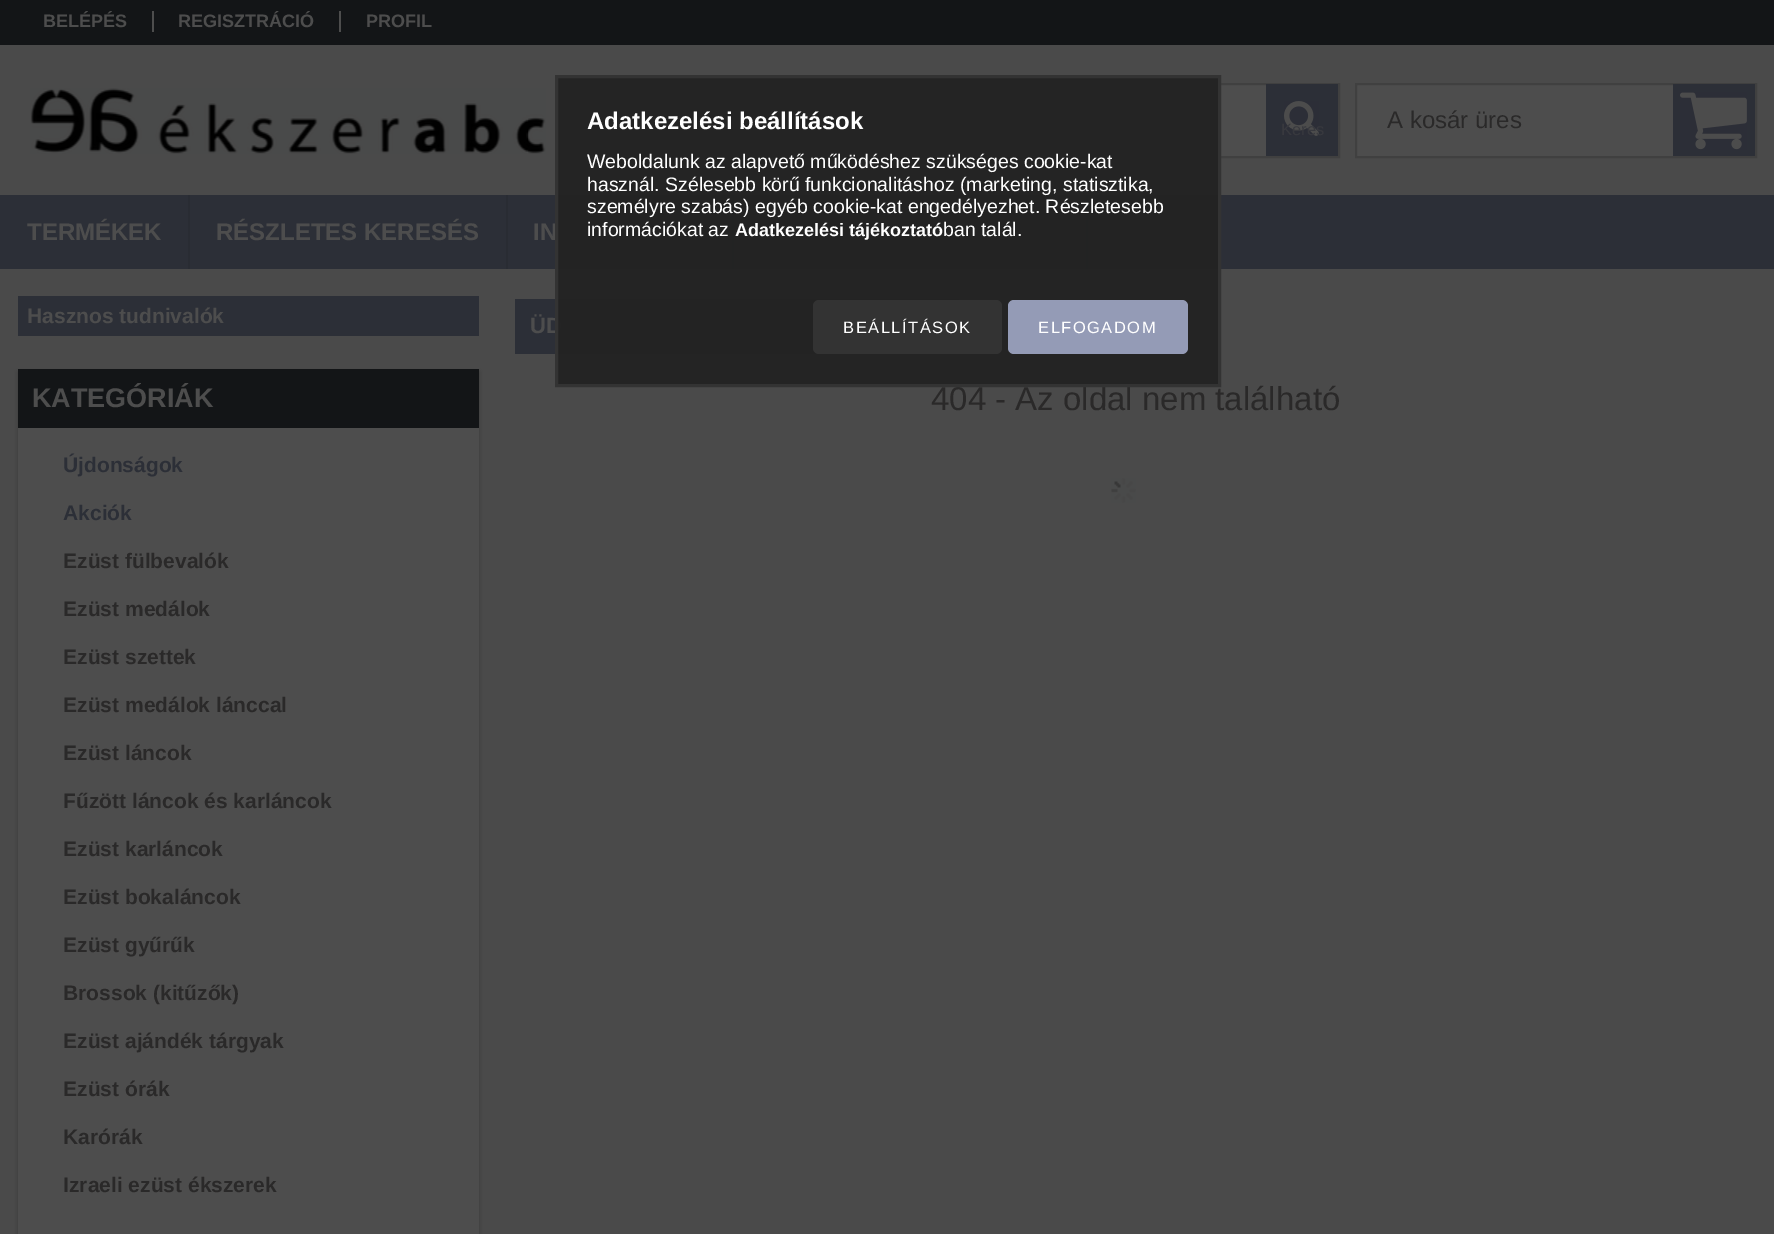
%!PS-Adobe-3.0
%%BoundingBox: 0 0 1774 1234
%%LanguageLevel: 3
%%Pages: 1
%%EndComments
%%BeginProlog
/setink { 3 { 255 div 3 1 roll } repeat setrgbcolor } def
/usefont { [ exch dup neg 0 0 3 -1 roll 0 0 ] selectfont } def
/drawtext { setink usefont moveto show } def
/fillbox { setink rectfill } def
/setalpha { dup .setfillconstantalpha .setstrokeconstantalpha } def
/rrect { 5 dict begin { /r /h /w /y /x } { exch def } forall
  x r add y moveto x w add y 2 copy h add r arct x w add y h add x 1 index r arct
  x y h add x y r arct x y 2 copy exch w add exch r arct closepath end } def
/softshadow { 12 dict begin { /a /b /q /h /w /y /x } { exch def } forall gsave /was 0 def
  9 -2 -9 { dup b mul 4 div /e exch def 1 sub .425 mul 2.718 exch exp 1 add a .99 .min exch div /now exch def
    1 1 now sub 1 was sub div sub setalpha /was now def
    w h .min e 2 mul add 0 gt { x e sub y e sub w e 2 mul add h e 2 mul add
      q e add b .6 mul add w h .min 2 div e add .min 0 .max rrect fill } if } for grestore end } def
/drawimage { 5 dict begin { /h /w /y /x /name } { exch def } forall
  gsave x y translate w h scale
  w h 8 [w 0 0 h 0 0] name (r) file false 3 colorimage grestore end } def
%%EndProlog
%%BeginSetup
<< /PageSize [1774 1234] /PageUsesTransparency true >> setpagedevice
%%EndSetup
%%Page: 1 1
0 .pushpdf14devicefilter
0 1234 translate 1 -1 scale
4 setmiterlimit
0 0 1774 1234 74 74 74 fillbox
0 0 1774 45 19 21 23 fillbox
(BELÉPÉS) 43 27 /LiberationSans-Bold 18 77 77 77 drawtext
152 11 2 21 77 77 77 fillbox
(REGISZTRÁCIÓ) 178 27 /LiberationSans-Bold 18 77 77 77 drawtext
339 11 2 21 77 77 77 fillbox
(PROFIL) 366 27 /LiberationSans-Bold 18 77 77 77 drawtext
(assets/img1.rgb) 30 88 516 66 drawimage
904 85 362 71 77 77 77 fillbox
64 64 64 setink
2 setlinewidth
903 84 436 73 rectstroke
1266 84 72 72 44 47 55 fillbox
(assets/img2.rgb) 1284 101 35 35 drawimage
(Keres) 1281 135 /LiberationSans-Regular 16.5 56 57 62 drawtext
1357 85 316 71 77 77 77 fillbox
64 64 64 setink
1356 84 400 73 rectstroke
(A kosár üres) 1387 128 /LiberationSans-Regular 24 42 41 41 drawtext
1673 84 82 72 44 47 55 fillbox
(assets/img3.rgb) 1680 92 67 58 drawimage
0 195 1774 74 44 47 55 fillbox
0.07 setalpha
188 195 2 74 0 0 0 fillbox
1 setalpha
(TERMÉKEK) 27 240 /LiberationSans-Bold 24 77 77 77 drawtext
0.07 setalpha
506 195 2 74 0 0 0 fillbox
1 setalpha
(RÉSZLETES KERESÉS) 216 240 /LiberationSans-Bold 24 77 77 77 drawtext
0.07 setalpha
732 195 2 74 0 0 0 fillbox
1 setalpha
(IN) 533 240 /LiberationSans-Bold 24 77 77 77 drawtext
0.07 setalpha
1086 195 2 74 0 0 0 fillbox
1 setalpha
18 296 461 40 44 47 55 fillbox
(Hasznos tudnivalók) 27 323 /LiberationSans-Bold 21 77 77 77 drawtext
0 0 0 setink
18 372 461 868 0 2 0.2 softshadow
18 369 461 59 19 21 23 fillbox
(KATEGÓRIÁK) 32 407 /LiberationSans-Bold 27 77 77 77 drawtext
18 428 461 806 77 77 77 fillbox
(Újdonságok) 63 472 /LiberationSans-Bold 21 44 47 55 drawtext
(Akciók) 63 520 /LiberationSans-Bold 21 44 47 55 drawtext
(Ezüst fülbevalók) 63 568 /LiberationSans-Bold 21 42 41 41 drawtext
(Ezüst medálok) 63 616 /LiberationSans-Bold 21 42 41 41 drawtext
(Ezüst szettek) 63 664 /LiberationSans-Bold 21 42 41 41 drawtext
(Ezüst medálok lánccal) 63 712 /LiberationSans-Bold 21 42 41 41 drawtext
(Ezüst láncok) 63 760 /LiberationSans-Bold 21 42 41 41 drawtext
(Fűzött láncok és karláncok) 63 808 /LiberationSans-Bold 21 42 41 41 drawtext
(Ezüst karláncok) 63 856 /LiberationSans-Bold 21 42 41 41 drawtext
(Ezüst bokaláncok) 63 904 /LiberationSans-Bold 21 42 41 41 drawtext
(Ezüst gyűrűk) 63 952 /LiberationSans-Bold 21 42 41 41 drawtext
(Brossok \(kitűzők\)) 63 1000 /LiberationSans-Bold 21 42 41 41 drawtext
(Ezüst ajándék tárgyak) 63 1048 /LiberationSans-Bold 21 42 41 41 drawtext
(Ezüst órák) 63 1096 /LiberationSans-Bold 21 42 41 41 drawtext
(Karórák) 63 1144 /LiberationSans-Bold 21 42 41 41 drawtext
(Izraeli ezüst ékszerek) 63 1192 /LiberationSans-Bold 21 42 41 41 drawtext
515 299 444 55 44 47 55 fillbox
(ÜD) 530 333 /LiberationSans-Bold 22 77 77 77 drawtext
(404 - Az oldal nem található) 931 410 /LiberationSans-Regular 33 42 41 41 drawtext
(assets/img4.rgb) 1111 478 25 25 drawimage
0.95 setalpha
34 34 34 setink
556.5 76.5 moveto 1219.5 76.5 lineto 1219.5 385.5 lineto 556.5 385.5 lineto closepath fill
1 setalpha
51 51 51 setink
3 setlinewidth
556.5 76.5 moveto 1219.5 76.5 lineto 1219.5 385.5 lineto 556.5 385.5 lineto closepath stroke
(Adatkezelési beállítások) 587 129 /LiberationSans-Bold 24 255 255 255 drawtext
(Weboldalunk az alapvető működéshez szükséges cookie-kat) 587 168 /LiberationSans-Regular 19.5 255 255 255 drawtext
(használ. Szélesebb körű funkcionalitáshoz \(marketing, statisztika,) 587 191 /LiberationSans-Regular 19.5 255 255 255 drawtext
(személyre szabás\) egyéb cookie-kat engedélyezhet. Részletesebb) 587 213 /LiberationSans-Regular 19.5 255 255 255 drawtext
(információkat az) 587 236 /LiberationSans-Regular 19.5 255 255 255 drawtext
(Adatkezelési tájékoztató) 735 236 /LiberationSans-Bold 18 255 255 255 drawtext
(ban talál.) 943 236 /LiberationSans-Regular 19.5 255 255 255 drawtext
51 51 51 setink
813 300 189 54 6 rrect fill
/LiberationSans-Regular 16.5 usefont
255 255 255 setink
843 333 moveto 1.5 0 (BEÁLLÍTÁSOK) ashow
148 155 182 setink
1008 300 180 54 6 rrect fill
255 255 255 setink
1038 333 moveto 1.5 0 (ELFOGADOM) ashow
.poppdf14devicefilter showpage
%%EOF
